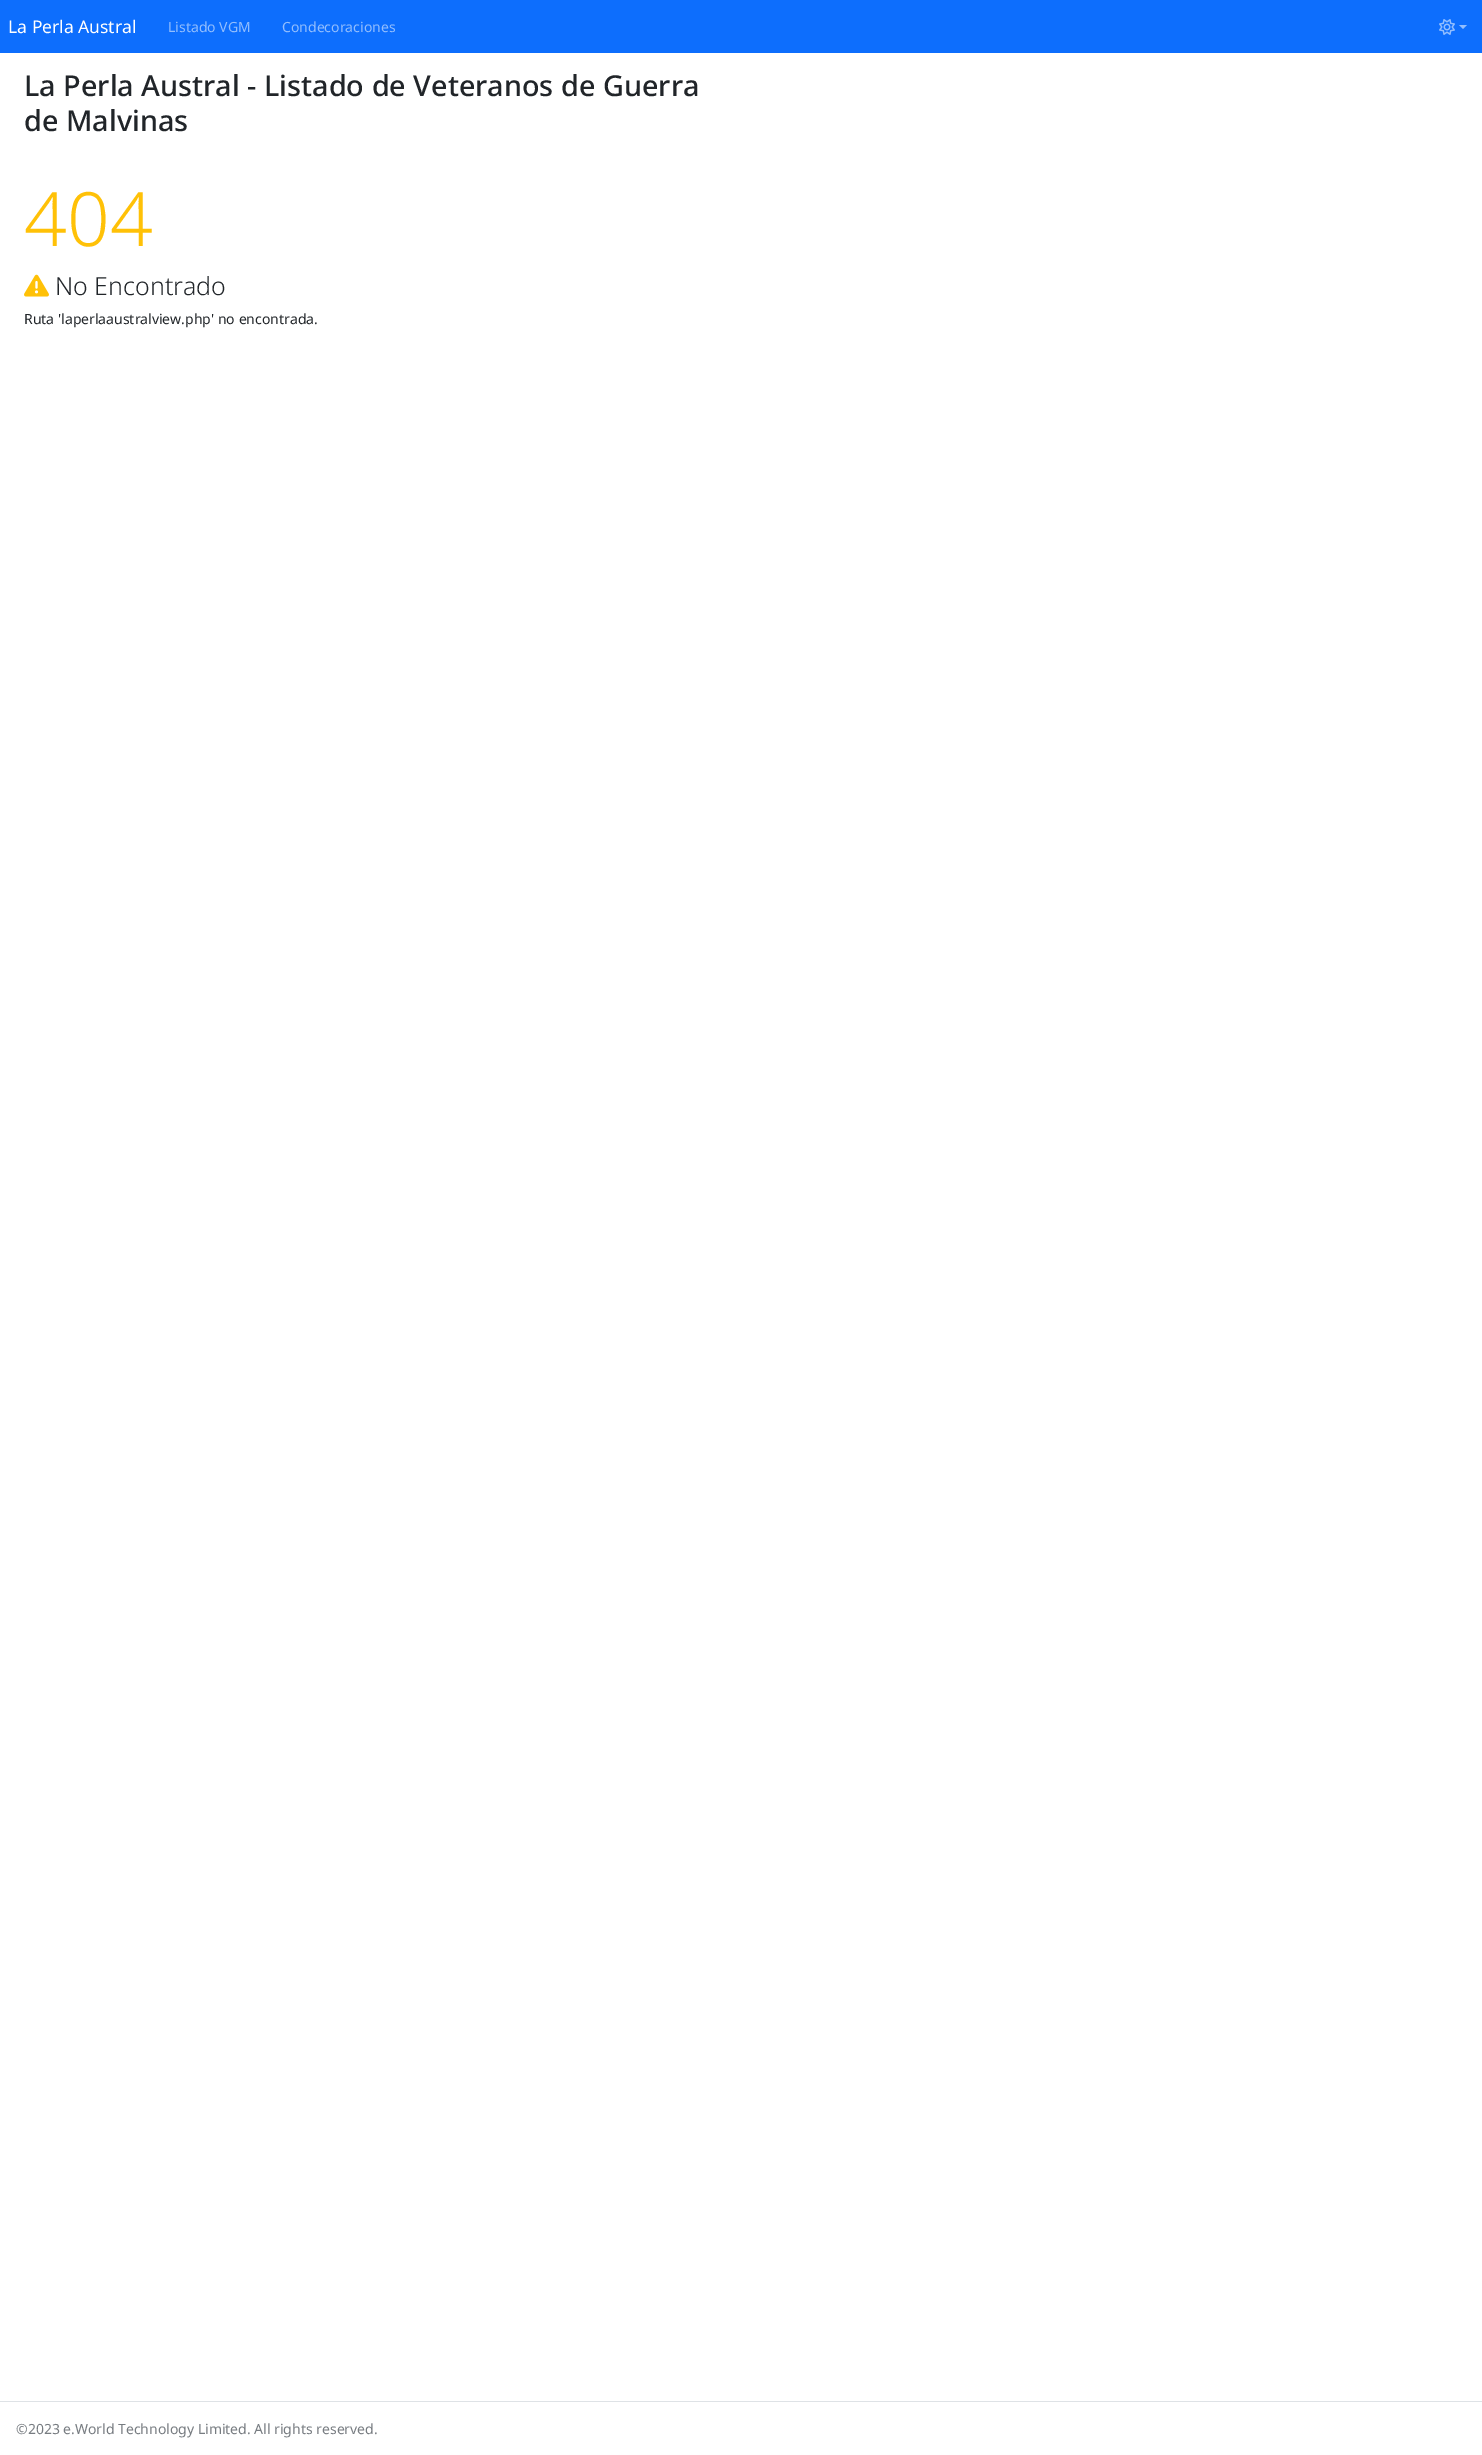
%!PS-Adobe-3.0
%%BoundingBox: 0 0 1482 2455
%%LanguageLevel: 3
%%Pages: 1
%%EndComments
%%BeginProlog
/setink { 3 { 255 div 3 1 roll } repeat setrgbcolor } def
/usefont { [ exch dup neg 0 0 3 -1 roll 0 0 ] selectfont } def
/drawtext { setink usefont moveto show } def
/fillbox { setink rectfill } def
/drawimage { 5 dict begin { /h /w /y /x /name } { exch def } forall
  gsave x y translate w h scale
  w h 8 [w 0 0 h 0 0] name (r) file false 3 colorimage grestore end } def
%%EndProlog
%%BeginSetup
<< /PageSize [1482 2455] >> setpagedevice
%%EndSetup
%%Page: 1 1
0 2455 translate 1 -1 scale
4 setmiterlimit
0 0 1482 2455 255 255 255 fillbox
0 0 1482 53 13 110 253 fillbox
(La Perla Austral) 8 33 /NotoSans-Regular 17.5 255 255 255 drawtext
(Listado VGM) 168 32 /NotoSans-Regular 14 146 190 254 drawtext
(Condecoraciones) 282 32 /NotoSans-Regular 14 146 190 254 drawtext
(assets/img1.rgb) 1439 19 16 16 drawimage
1459 25 moveto 1467 25 lineto 1463 29 lineto closepath fill
(La Perla Austral - Listado de Veteranos de Guerra) 24 96 /NotoSans-Medium 28.8 33 37 41 drawtext
(de Malvinas) 24 131 /NotoSans-Medium 28.8 33 37 41 drawtext
(404) 24 246 /NotoSans-Light 75 255 193 7 drawtext
(assets/img2.rgb) 24 274 25 23 drawimage
(No Encontrado) 55 295 /NotoSans-Light 25 33 37 41 drawtext
(Ruta 'laperlaaustralview.php' no encontrada.) 24 324 /NotoSans-Regular 14 33 37 41 drawtext
0 2401 1482 1 222 226 230 fillbox
(©2023 e.World Technology Limited. All rights reserved.) 16 2434 /NotoSans-Regular 14 119 124 129 drawtext
showpage
%%EOF
